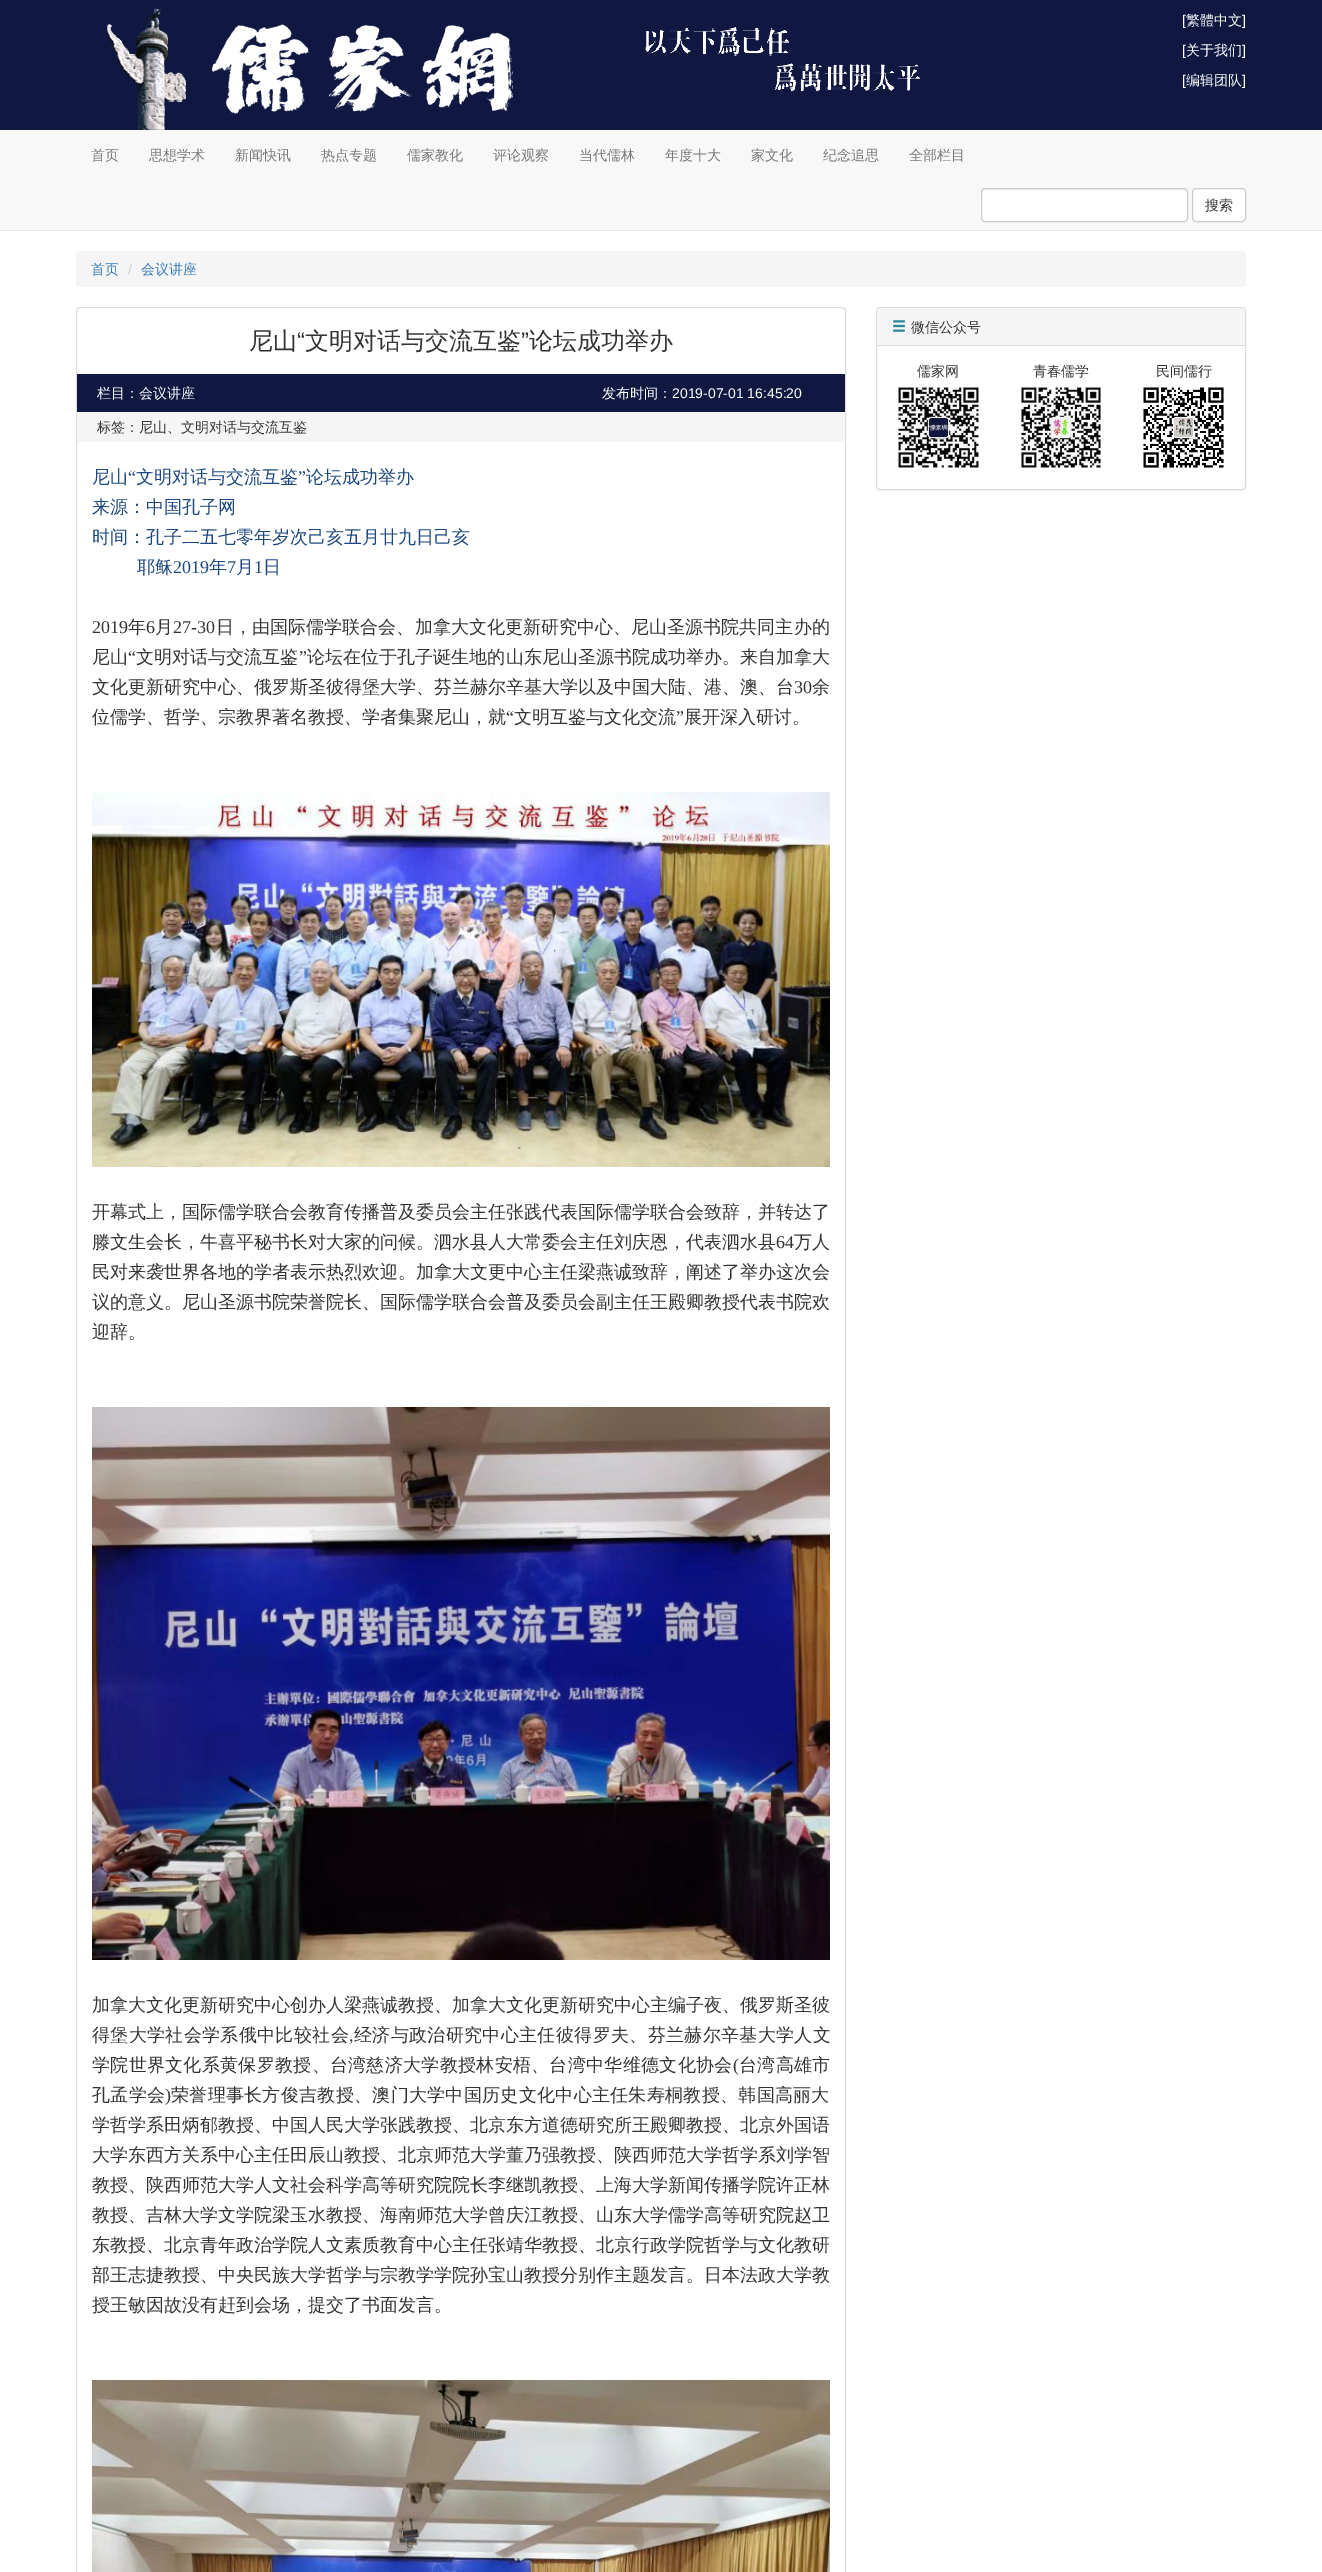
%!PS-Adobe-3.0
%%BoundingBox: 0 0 1322 2572
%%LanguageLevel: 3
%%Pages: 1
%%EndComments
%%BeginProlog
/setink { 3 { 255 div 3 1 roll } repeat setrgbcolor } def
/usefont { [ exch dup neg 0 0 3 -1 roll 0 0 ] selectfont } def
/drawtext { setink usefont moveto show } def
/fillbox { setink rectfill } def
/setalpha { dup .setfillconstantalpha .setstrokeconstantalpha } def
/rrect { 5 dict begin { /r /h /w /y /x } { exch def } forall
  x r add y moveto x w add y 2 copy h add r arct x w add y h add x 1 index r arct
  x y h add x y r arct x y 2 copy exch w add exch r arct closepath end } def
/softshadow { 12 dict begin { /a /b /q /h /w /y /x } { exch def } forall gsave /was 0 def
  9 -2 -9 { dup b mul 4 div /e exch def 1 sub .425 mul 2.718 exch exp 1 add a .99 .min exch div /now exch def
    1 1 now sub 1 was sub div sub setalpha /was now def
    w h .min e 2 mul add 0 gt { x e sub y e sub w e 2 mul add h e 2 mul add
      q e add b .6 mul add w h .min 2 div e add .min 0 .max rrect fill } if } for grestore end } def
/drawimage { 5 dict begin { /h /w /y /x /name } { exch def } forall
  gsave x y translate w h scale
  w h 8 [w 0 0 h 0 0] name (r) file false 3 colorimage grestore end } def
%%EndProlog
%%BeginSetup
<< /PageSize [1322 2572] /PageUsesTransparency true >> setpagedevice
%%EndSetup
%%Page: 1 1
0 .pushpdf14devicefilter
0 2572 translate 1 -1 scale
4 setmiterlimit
0 0 1322 2572 255 255 255 fillbox
0 0 1322 130 16 24 66 fillbox
(assets/img1.rgb) 106 8 815 122 drawimage
([) 1182 25 /LiberationSans-Regular 14 255 255 255 drawtext
(繁體中文) 1186 25 /WenQuanYiZenHei-Medium 14 255 255 255 drawtext
(]) 1242 25 /LiberationSans-Regular 14 255 255 255 drawtext
([) 1182 55 /LiberationSans-Regular 14 255 255 255 drawtext
(关于我们) 1186 55 /WenQuanYiZenHei-Medium 14 255 255 255 drawtext
(]) 1242 55 /LiberationSans-Regular 14 255 255 255 drawtext
([) 1182 85 /LiberationSans-Regular 14 255 255 255 drawtext
(编辑团队) 1186 85 /WenQuanYiZenHei-Medium 14 255 255 255 drawtext
(]) 1242 85 /LiberationSans-Regular 14 255 255 255 drawtext
0 130 1322 100 248 248 248 fillbox
0 230 1322 1 231 231 231 fillbox
(首页) 91 160 /WenQuanYiZenHei-Medium 14 119 119 119 drawtext
(思想学术) 149 160 /WenQuanYiZenHei-Medium 14 119 119 119 drawtext
(新闻快讯) 235 160 /WenQuanYiZenHei-Medium 14 119 119 119 drawtext
(热点专题) 321 160 /WenQuanYiZenHei-Medium 14 119 119 119 drawtext
(儒家教化) 407 160 /WenQuanYiZenHei-Medium 14 119 119 119 drawtext
(评论观察) 493 160 /WenQuanYiZenHei-Medium 14 119 119 119 drawtext
(当代儒林) 579 160 /WenQuanYiZenHei-Medium 14 119 119 119 drawtext
(年度十大) 665 160 /WenQuanYiZenHei-Medium 14 119 119 119 drawtext
(家文化) 751 160 /WenQuanYiZenHei-Medium 14 119 119 119 drawtext
(纪念追思) 823 160 /WenQuanYiZenHei-Medium 14 119 119 119 drawtext
(全部栏目) 909 160 /WenQuanYiZenHei-Medium 14 119 119 119 drawtext
255 255 255 setink
981 188 207 34 4 rrect fill
236 236 236 setink
985 190 moveto 1184 190 lineto 1186 190 1187 191 1187 193 curveto 1187 191 1186 189 1184 189 curveto 985 189 lineto 983 189 982 191 982 193 curveto 982 191 983 190 985 190 curveto closepath fill
204 204 204 setink
981.5 188.5 206 33 3.5 rrect stroke
255 255 255 setink
1192.5 188.5 53 33 3.5 rrect gsave fill grestore
204 204 204 setink
stroke
(搜索) 1205 210 /WenQuanYiZenHei-Medium 14 51 51 51 drawtext
245 245 245 setink
76 251 1170 36 4 rrect fill
(首页) 91 274 /WenQuanYiZenHei-Medium 14 51 122 183 drawtext
(/) 128 274 /LiberationSans-Regular 14 204 204 204 drawtext
(会议讲座) 141 274 /WenQuanYiZenHei-Medium 14 51 122 183 drawtext
221 221 221 setink
76.5 307.5 769 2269 3.5 rrect stroke
(尼山) 249 349 /WenQuanYiZenHei-Medium 24 51 51 51 drawtext
(“) 297 349 /LiberationSans-Regular 24 51 51 51 drawtext
(文明对话与交流互鉴) 305 349 /WenQuanYiZenHei-Medium 24 51 51 51 drawtext
(”) 521 349 /LiberationSans-Regular 24 51 51 51 drawtext
(论坛成功举办) 529 349 /WenQuanYiZenHei-Medium 24 51 51 51 drawtext
77 374 768 38 16 24 66 fillbox
(栏目：会议讲座) 97 398 /WenQuanYiZenHei-Medium 14 255 255 255 drawtext
(发布时间：) 602 398 /WenQuanYiZenHei-Medium 14 255 255 255 drawtext
(2019-07-01 16:45:20) 672 398 /LiberationSans-Regular 14 255 255 255 drawtext
77 412 768 30 245 245 245 fillbox
(标签：尼山、文明对话与交流互鉴) 97 432 /WenQuanYiZenHei-Medium 14 51 51 51 drawtext
(尼山) 92 483 /WenQuanYiZenHei-Medium 18 28 72 127 drawtext
(“) 128 483 /LiberationSerif-Regular 18 28 72 127 drawtext
(文明对话与交流互鉴) 136 483 /WenQuanYiZenHei-Medium 18 28 72 127 drawtext
(”) 298 483 /LiberationSerif-Regular 18 28 72 127 drawtext
(论坛成功举办) 306 483 /WenQuanYiZenHei-Medium 18 28 72 127 drawtext
(来源：中国孔子网) 92 513 /WenQuanYiZenHei-Medium 18 28 72 127 drawtext
(时间：孔子二五七零年岁次己亥五月廿九日己亥) 92 543 /WenQuanYiZenHei-Medium 18 28 72 127 drawtext
(耶稣) 137 573 /WenQuanYiZenHei-Medium 18 28 72 127 drawtext
(2019) 173 573 /LiberationSerif-Regular 18 28 72 127 drawtext
(年) 209 573 /WenQuanYiZenHei-Medium 18 28 72 127 drawtext
(7) 227 573 /LiberationSerif-Regular 18 28 72 127 drawtext
(月) 236 573 /WenQuanYiZenHei-Medium 18 28 72 127 drawtext
(1) 254 573 /LiberationSerif-Regular 18 28 72 127 drawtext
(日) 263 573 /WenQuanYiZenHei-Medium 18 28 72 127 drawtext
/LiberationSerif-Regular 18 usefont
51 51 51 setink
92 633 moveto 0.05 0 (2019) ashow
/WenQuanYiZenHei-Medium 18 usefont
128 633 moveto 0.05 0 (年) ashow
/LiberationSerif-Regular 18 usefont
146 633 moveto 0.05 0 (6) ashow
/WenQuanYiZenHei-Medium 18 usefont
155 633 moveto 0.05 0 (月) ashow
/LiberationSerif-Regular 18 usefont
173 633 moveto 0.05 0 (27-30) ashow
/WenQuanYiZenHei-Medium 18 usefont
216 633 moveto 0.05 0 (日，由国际儒学联合会、加拿大文化更新研究中心、尼山圣源书院共同主办的) ashow
92 663 moveto 0.05 0 (尼山) ashow
/LiberationSerif-Regular 18 usefont
128 663 moveto 0.05 0 (“) ashow
/WenQuanYiZenHei-Medium 18 usefont
136 663 moveto 0.05 0 (文明对话与交流互鉴) ashow
/LiberationSerif-Regular 18 usefont
299 663 moveto 0.05 0 (”) ashow
/WenQuanYiZenHei-Medium 18 usefont
307 663 moveto 0.05 0 (论坛在位于孔子诞生地的山东尼山圣源书院成功举办。来自加拿大) ashow
(文化更新研究中心、俄罗斯圣彼得堡大学、芬兰赫尔辛基大学以及中国大陆、港、澳、台) 92 693 /WenQuanYiZenHei-Medium 18 51 51 51 drawtext
(30) 794 693 /LiberationSerif-Regular 18 51 51 51 drawtext
(余) 812 693 /WenQuanYiZenHei-Medium 18 51 51 51 drawtext
(位儒学、哲学、宗教界著名教授、学者集聚尼山，就) 92 723 /WenQuanYiZenHei-Medium 18 51 51 51 drawtext
(“) 506 723 /LiberationSerif-Regular 18 51 51 51 drawtext
(文明互鉴与文化交流) 514 723 /WenQuanYiZenHei-Medium 18 51 51 51 drawtext
(”) 676 723 /LiberationSerif-Regular 18 51 51 51 drawtext
(展开深入研讨。) 684 723 /WenQuanYiZenHei-Medium 18 51 51 51 drawtext
(assets/img2.rgb) 92 792 738 375 drawimage
(开幕式上，国际儒学联合会教育传播普及委员会主任张践代表国际儒学联合会致辞，并转达了) 92 1218 /WenQuanYiZenHei-Medium 18 51 51 51 drawtext
(滕文生会长，牛喜平秘书长对大家的问候。泗水县人大常委会主任刘庆恩，代表泗水县) 92 1248 /WenQuanYiZenHei-Medium 18 51 51 51 drawtext
(64) 776 1248 /LiberationSerif-Regular 18 51 51 51 drawtext
(万人) 794 1248 /WenQuanYiZenHei-Medium 18 51 51 51 drawtext
(民对来袭世界各地的学者表示热烈欢迎。加拿大文更中心主任梁燕诚致辞，阐述了举办这次会) 92 1278 /WenQuanYiZenHei-Medium 18 51 51 51 drawtext
(议的意义。尼山圣源书院荣誉院长、国际儒学联合会普及委员会副主任王殿卿教授代表书院欢) 92 1308 /WenQuanYiZenHei-Medium 18 51 51 51 drawtext
(迎辞。) 92 1338 /WenQuanYiZenHei-Medium 18 51 51 51 drawtext
(assets/img3.rgb) 92 1407 738 553 drawimage
(加拿大文化更新研究中心创办人梁燕诚教授、加拿大文化更新研究中心主编子夜、俄罗斯圣彼) 92 2011 /WenQuanYiZenHei-Medium 18 51 51 51 drawtext
92 2041 moveto 0.35 0 (得堡大学社会学系俄中比较社会) ashow
/LiberationSerif-Regular 18 usefont
349 2041 moveto 0.35 0 (,) ashow
/WenQuanYiZenHei-Medium 18 usefont
354 2041 moveto 0.35 0 (经济与政治研究中心主任彼得罗夫、芬兰赫尔辛基大学人文) ashow
92 2071 moveto 0.3 0 (学院世界文化系黄保罗教授、台湾慈济大学教授林安梧、台湾中华维德文化协会) ashow
/LiberationSerif-Regular 18 usefont
733 2071 moveto 0.3 0 (\() ashow
/WenQuanYiZenHei-Medium 18 usefont
739 2071 moveto 0.3 0 (台湾高雄市) ashow
92 2101 moveto 0.3 0 (孔孟学会) ashow
/LiberationSerif-Regular 18 usefont
165 2101 moveto 0.3 0 (\)) ashow
/WenQuanYiZenHei-Medium 18 usefont
171 2101 moveto 0.3 0 (荣誉理事长方俊吉教授、澳门大学中国历史文化中心主任朱寿桐教授、韩国高丽大) ashow
(学哲学系田炳郁教授、中国人民大学张践教授、北京东方道德研究所王殿卿教授、北京外国语) 92 2131 /WenQuanYiZenHei-Medium 18 51 51 51 drawtext
(大学东西方关系中心主任田辰山教授、北京师范大学董乃强教授、陕西师范大学哲学系刘学智) 92 2161 /WenQuanYiZenHei-Medium 18 51 51 51 drawtext
(教授、陕西师范大学人文社会科学高等研究院院长李继凯教授、上海大学新闻传播学院许正林) 92 2191 /WenQuanYiZenHei-Medium 18 51 51 51 drawtext
(教授、吉林大学文学院梁玉水教授、海南师范大学曾庆江教授、山东大学儒学高等研究院赵卫) 92 2221 /WenQuanYiZenHei-Medium 18 51 51 51 drawtext
(东教授、北京青年政治学院人文素质教育中心主任张靖华教授、北京行政学院哲学与文化教研) 92 2251 /WenQuanYiZenHei-Medium 18 51 51 51 drawtext
(部王志捷教授、中央民族大学哲学与宗教学学院孙宝山教授分别作主题发言。日本法政大学教) 92 2281 /WenQuanYiZenHei-Medium 18 51 51 51 drawtext
(授王敏因故没有赶到会场，提交了书面发言。) 92 2311 /WenQuanYiZenHei-Medium 18 51 51 51 drawtext
(assets/img4.rgb) 92 2380 738 192 drawimage
0 0 0 setink
876 308 370 183 4 0.5 0.05 softshadow
255 255 255 setink
876.5 307.5 369 182 3.5 rrect gsave fill grestore
221 221 221 setink
stroke
245 245 245 setink
880 308 moveto 1242 308 lineto 1243.5 308 1245 309.5 1245 311 curveto 1245 346 lineto 877 346 lineto 877 311 lineto 877 309.5 878.5 308 880 308 curveto closepath fill
877 345 368 1 221 221 221 fillbox
(assets/img5.rgb) 893 320 12 12 drawimage
(微信公众号) 911 332 /WenQuanYiZenHei-Medium 14 51 51 51 drawtext
(儒家网) 917 376 /WenQuanYiZenHei-Medium 14 51 51 51 drawtext
(assets/img6.rgb) 897 386 82 82 drawimage
(青春儒学) 1033 376 /WenQuanYiZenHei-Medium 14 51 51 51 drawtext
(assets/img7.rgb) 1020 386 81 82 drawimage
(民间儒行) 1156 376 /WenQuanYiZenHei-Medium 14 51 51 51 drawtext
(assets/img8.rgb) 1143 387 81 81 drawimage
.poppdf14devicefilter showpage
%%EOF
